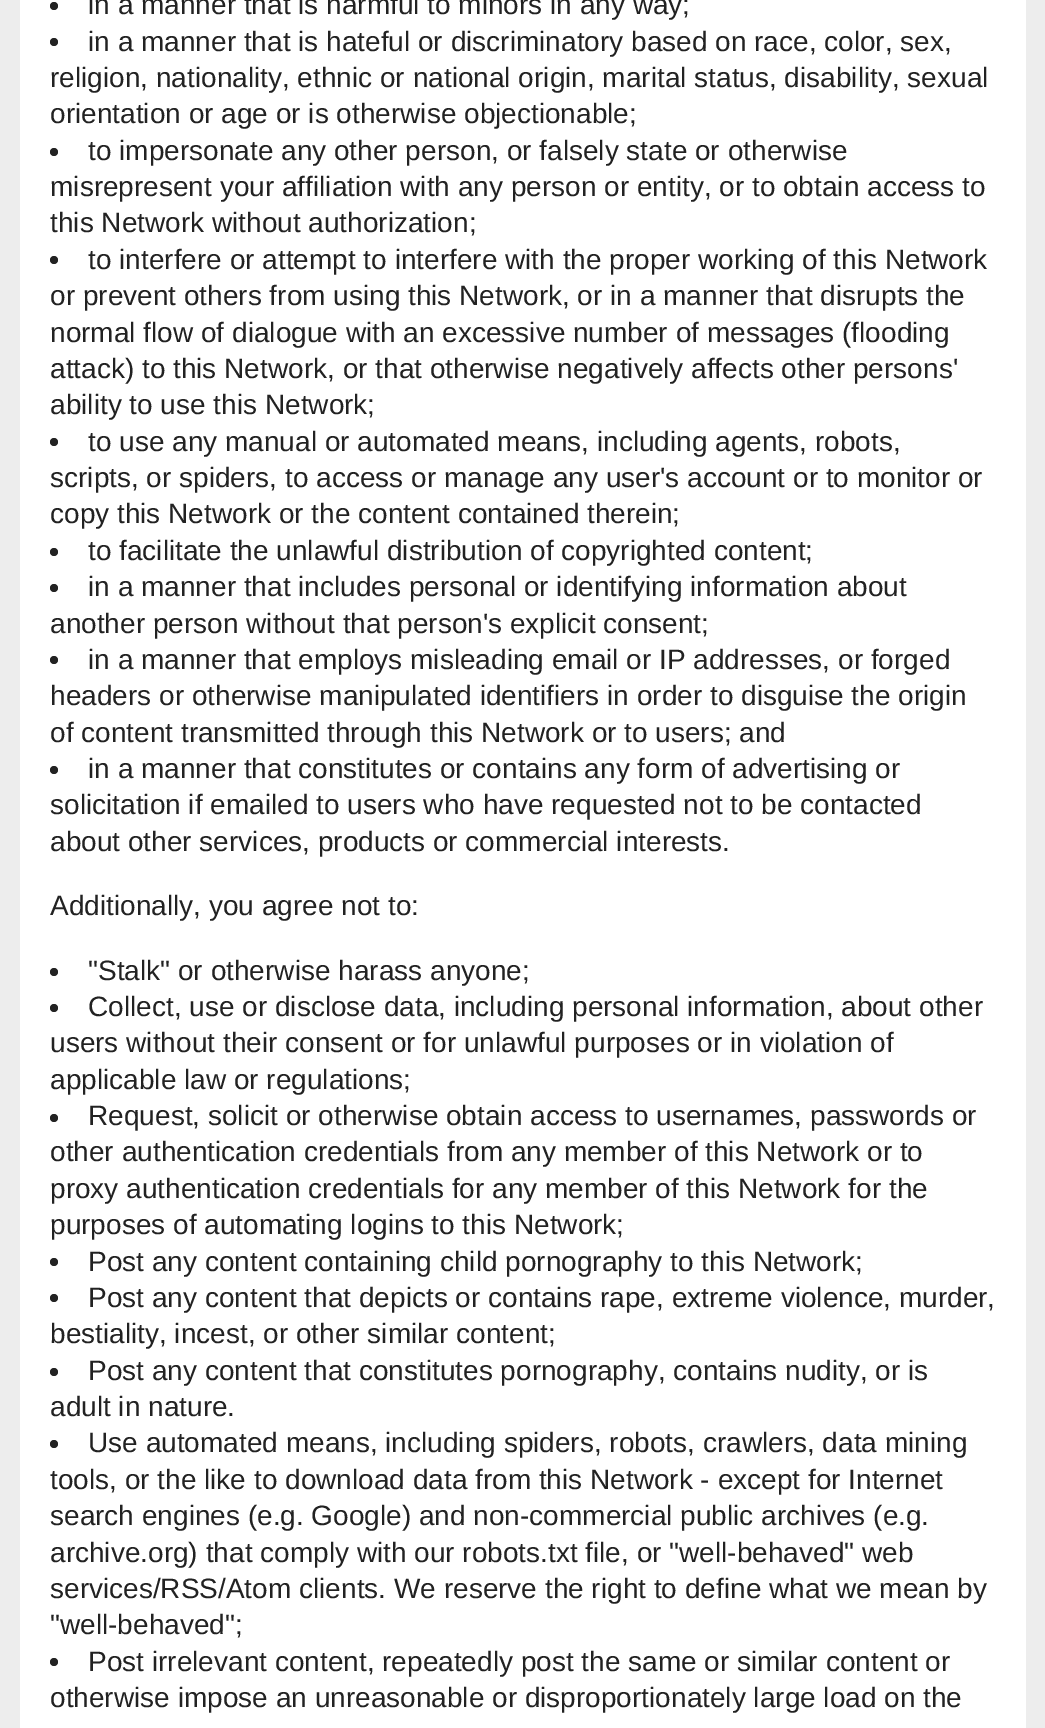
%!PS-Adobe-3.0
%%BoundingBox: 0 0 1045 1728
%%LanguageLevel: 3
%%Pages: 1
%%EndComments
%%BeginProlog
/setink { 3 { 255 div 3 1 roll } repeat setrgbcolor } def
/usefont { [ exch dup neg 0 0 3 -1 roll 0 0 ] selectfont } def
/drawtext { setink usefont moveto show } def
/fillbox { setink rectfill } def
/disc { newpath 0 360 arc closepath } def
%%EndProlog
%%BeginSetup
<< /PageSize [1045 1728] >> setpagedevice
%%EndSetup
%%Page: 1 1
0 1728 translate 1 -1 scale
4 setmiterlimit
0 0 1045 1728 237 237 237 fillbox
20 0 1006 1728 255 255 255 fillbox
34 34 34 setink
54 6 4 disc fill
(in a manner that is harmful to minors in any way;) 88 14 /LiberationSans-Regular 28 34 34 34 drawtext
54 42 4 disc fill
(in a manner that is hateful or discriminatory based on race, color, sex,) 88 51 /LiberationSans-Regular 28 34 34 34 drawtext
(religion, nationality, ethnic or national origin, marital status, disability, sexual) 50 87 /LiberationSans-Regular 28 34 34 34 drawtext
(orientation or age or is otherwise objectionable;) 50 123 /LiberationSans-Regular 28 34 34 34 drawtext
54 152 4 disc fill
(to impersonate any other person, or falsely state or otherwise) 88 160 /LiberationSans-Regular 28 34 34 34 drawtext
(misrepresent your affiliation with any person or entity, or to obtain access to) 50 196 /LiberationSans-Regular 28 34 34 34 drawtext
(this Network without authorization;) 50 232 /LiberationSans-Regular 28 34 34 34 drawtext
54 260 4 disc fill
(to interfere or attempt to interfere with the proper working of this Network) 88 269 /LiberationSans-Regular 28 34 34 34 drawtext
(or prevent others from using this Network, or in a manner that disrupts the) 50 305 /LiberationSans-Regular 28 34 34 34 drawtext
(normal flow of dialogue with an excessive number of messages \(flooding) 50 342 /LiberationSans-Regular 28 34 34 34 drawtext
(attack\) to this Network, or that otherwise negatively affects other persons') 50 378 /LiberationSans-Regular 28 34 34 34 drawtext
(ability to use this Network;) 50 414 /LiberationSans-Regular 28 34 34 34 drawtext
54 442 4 disc fill
(to use any manual or automated means, including agents, robots,) 88 451 /LiberationSans-Regular 28 34 34 34 drawtext
(scripts, or spiders, to access or manage any user's account or to monitor or) 50 487 /LiberationSans-Regular 28 34 34 34 drawtext
(copy this Network or the content contained therein;) 50 523 /LiberationSans-Regular 28 34 34 34 drawtext
54 552 4 disc fill
(to facilitate the unlawful distribution of copyrighted content;) 88 560 /LiberationSans-Regular 28 34 34 34 drawtext
54 588 4 disc fill
(in a manner that includes personal or identifying information about) 88 596 /LiberationSans-Regular 28 34 34 34 drawtext
(another person without that person's explicit consent;) 50 633 /LiberationSans-Regular 28 34 34 34 drawtext
54 660 4 disc fill
(in a manner that employs misleading email or IP addresses, or forged) 88 669 /LiberationSans-Regular 28 34 34 34 drawtext
(headers or otherwise manipulated identifiers in order to disguise the origin) 50 705 /LiberationSans-Regular 28 34 34 34 drawtext
(of content transmitted through this Network or to users; and) 50 742 /LiberationSans-Regular 28 34 34 34 drawtext
54 770 4 disc fill
(in a manner that constitutes or contains any form of advertising or) 88 778 /LiberationSans-Regular 28 34 34 34 drawtext
(solicitation if emailed to users who have requested not to be contacted) 50 814 /LiberationSans-Regular 28 34 34 34 drawtext
(about other services, products or commercial interests.) 50 851 /LiberationSans-Regular 28 34 34 34 drawtext
(Additionally, you agree not to:) 50 915 /LiberationSans-Regular 28 34 34 34 drawtext
54 972 4 disc fill
("Stalk" or otherwise harass anyone;) 88 980 /LiberationSans-Regular 28 34 34 34 drawtext
54 1008 4 disc fill
(Collect, use or disclose data, including personal information, about other) 88 1016 /LiberationSans-Regular 28 34 34 34 drawtext
(users without their consent or for unlawful purposes or in violation of) 50 1052 /LiberationSans-Regular 28 34 34 34 drawtext
(applicable law or regulations;) 50 1089 /LiberationSans-Regular 28 34 34 34 drawtext
54 1118 4 disc fill
(Request, solicit or otherwise obtain access to usernames, passwords or) 88 1125 /LiberationSans-Regular 28 34 34 34 drawtext
(other authentication credentials from any member of this Network or to) 50 1161 /LiberationSans-Regular 28 34 34 34 drawtext
(proxy authentication credentials for any member of this Network for the) 50 1198 /LiberationSans-Regular 28 34 34 34 drawtext
(purposes of automating logins to this Network;) 50 1234 /LiberationSans-Regular 28 34 34 34 drawtext
54 1262 4 disc fill
(Post any content containing child pornography to this Network;) 88 1271 /LiberationSans-Regular 28 34 34 34 drawtext
54 1298 4 disc fill
(Post any content that depicts or contains rape, extreme violence, murder,) 88 1307 /LiberationSans-Regular 28 34 34 34 drawtext
(bestiality, incest, or other similar content;) 50 1343 /LiberationSans-Regular 28 34 34 34 drawtext
54 1372 4 disc fill
(Post any content that constitutes pornography, contains nudity, or is) 88 1380 /LiberationSans-Regular 28 34 34 34 drawtext
(adult in nature.) 50 1416 /LiberationSans-Regular 28 34 34 34 drawtext
54 1444 4 disc fill
(Use automated means, including spiders, robots, crawlers, data mining) 88 1452 /LiberationSans-Regular 28 34 34 34 drawtext
(tools, or the like to download data from this Network - except for Internet) 50 1489 /LiberationSans-Regular 28 34 34 34 drawtext
(search engines \(e.g. Google\) and non-commercial public archives \(e.g.) 50 1525 /LiberationSans-Regular 28 34 34 34 drawtext
(archive.org\) that comply with our robots.txt file, or "well-behaved" web) 50 1562 /LiberationSans-Regular 28 34 34 34 drawtext
(services/RSS/Atom clients. We reserve the right to define what we mean by) 50 1598 /LiberationSans-Regular 28 34 34 34 drawtext
("well-behaved";) 50 1634 /LiberationSans-Regular 28 34 34 34 drawtext
54 1662 4 disc fill
(Post irrelevant content, repeatedly post the same or similar content or) 88 1671 /LiberationSans-Regular 28 34 34 34 drawtext
(otherwise impose an unreasonable or disproportionately large load on the) 50 1707 /LiberationSans-Regular 28 34 34 34 drawtext
showpage
%%EOF
